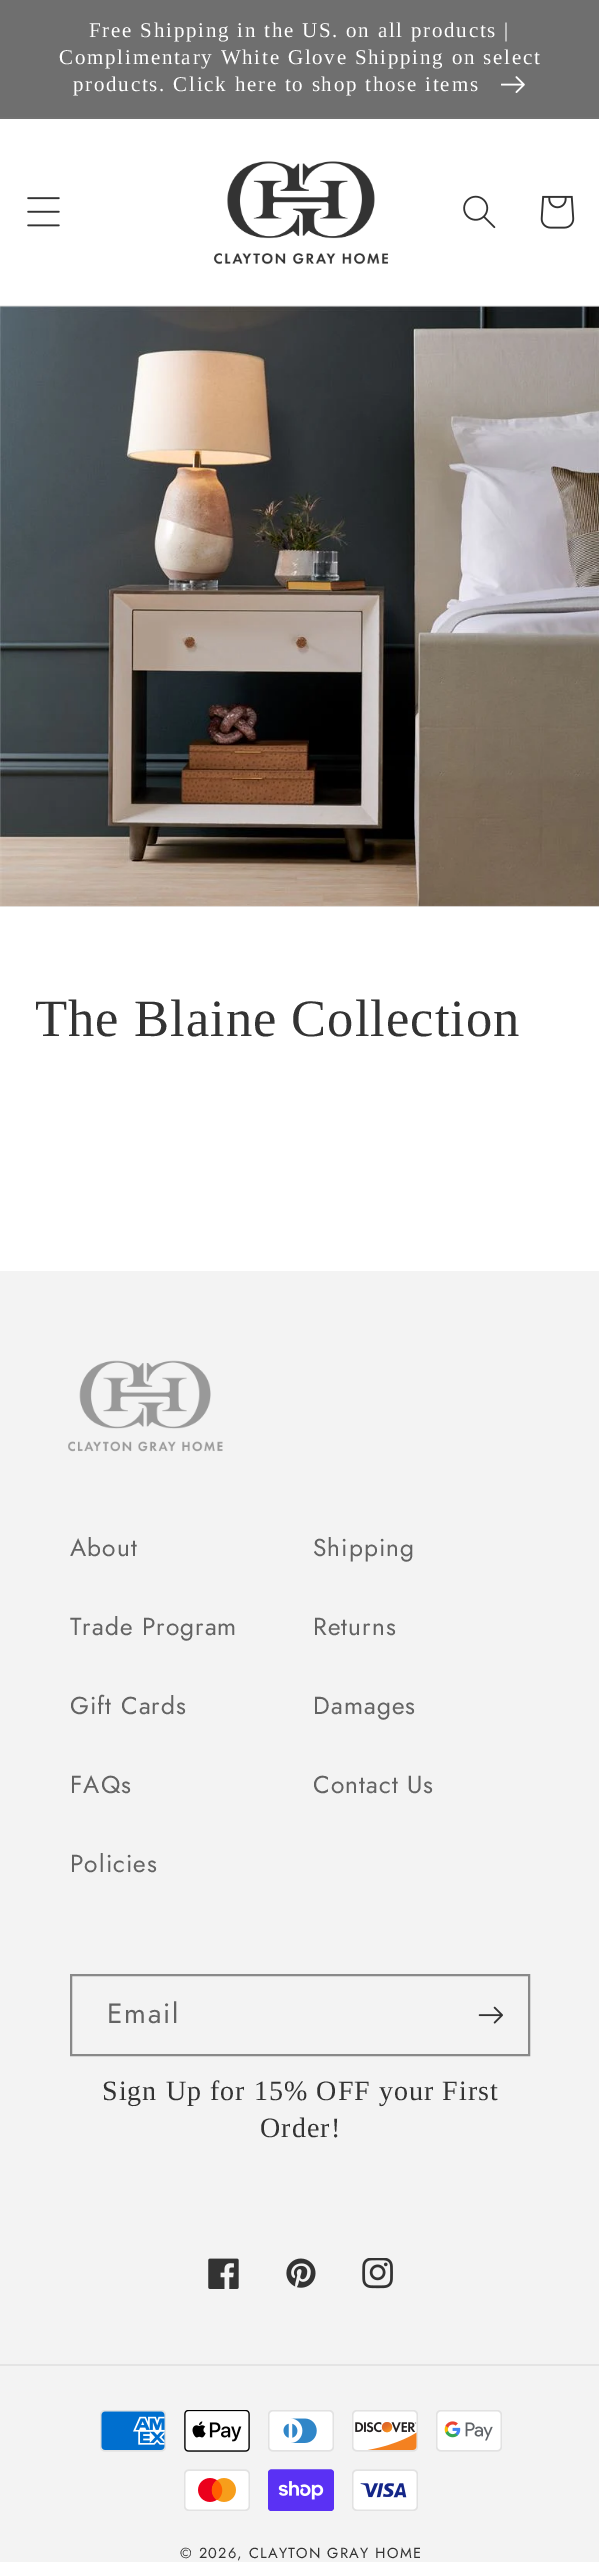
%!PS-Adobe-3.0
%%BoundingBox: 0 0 599 2562
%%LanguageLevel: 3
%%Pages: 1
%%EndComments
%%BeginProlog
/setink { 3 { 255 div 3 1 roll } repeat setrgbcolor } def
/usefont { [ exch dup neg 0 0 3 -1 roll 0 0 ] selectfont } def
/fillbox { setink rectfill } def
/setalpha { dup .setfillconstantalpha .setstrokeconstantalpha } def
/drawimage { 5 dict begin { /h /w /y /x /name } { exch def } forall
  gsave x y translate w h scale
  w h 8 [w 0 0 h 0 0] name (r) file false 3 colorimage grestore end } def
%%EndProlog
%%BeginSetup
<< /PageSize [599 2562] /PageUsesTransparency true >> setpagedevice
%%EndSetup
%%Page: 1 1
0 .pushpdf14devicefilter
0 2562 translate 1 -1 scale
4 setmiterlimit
0 0 599 2562 255 255 255 fillbox
0 117 599 2 114 114 114 fillbox
0 0 599 117 111 111 111 fillbox
/LiberationSerif-Regular 21 usefont
255 255 255 setink
89 37 moveto 1.75 0 (Free Shipping in the US. on all products |) ashow
59 64 moveto 1.75 0 (Complimentary White Glove Shipping on select) ashow
73 91 moveto 1.75 0 (products. Click here to shop those items) ashow
(assets/img1.rgb) 501 76 24 17 drawimage
0 306 599 601 235 235 235 fillbox
(assets/img6.rgb) 0 306 599 601 drawimage
0.08 setalpha
0 305 599 2 51 51 51 fillbox
1 setalpha
(assets/img2.rgb) 27 197 33 30 drawimage
(assets/img3.rgb) 213 161 176 104 drawimage
(assets/img4.rgb) 463 195 33 34 drawimage
(assets/img5.rgb) 540 195 35 34 drawimage
/LiberationSerif-Regular 52.5 usefont
35 1036 moveto 1.05 0 (The Blaine Collection) ashow
0 1271 599 1291 243 243 243 fillbox
(assets/img7.rgb) 68 1360 155 92 drawimage
/Jost-Regular 24.5 usefont
99 99 99 setink
70 1556 moveto 1.05 0 (About) ashow
313 1556 moveto 1.05 0 (Shipping) ashow
70 1635 moveto 1.05 0 (Trade Program) ashow
313 1635 moveto 1.05 0 (Returns) ashow
70 1714 moveto 1.05 0 (Gift Cards) ashow
313 1714 moveto 1.05 0 (Damages) ashow
70 1793 moveto 1.05 0 (FAQs) ashow
313 1793 moveto 1.05 0 (Contact Us) ashow
70 1872 moveto 1.05 0 (Policies) ashow
137 137 137 setink
2 setlinewidth
71 1975 458 80 rectstroke
/Jost-Regular 28 usefont
99 99 99 setink
107 2023 moveto 1.75 0 (Email) ashow
(assets/img8.rgb) 478 2006 25 18 drawimage
/LiberationSerif-Regular 28 usefont
51 51 51 setink
102 2100 moveto 1.05 0 (Sign Up for 15% OFF your First) ashow
260 2137 moveto 1.05 0 (Order!) ashow
(assets/img9.rgb) 208 2258 31 31 drawimage
(assets/img10.rgb) 286 2258 30 30 drawimage
(assets/img11.rgb) 362 2258 31 31 drawimage
0 2364 599 2 228 228 228 fillbox
(assets/img12.rgb) 100 2410 66 42 drawimage
(assets/img13.rgb) 184 2410 66 42 drawimage
(assets/img14.rgb) 268 2410 66 42 drawimage
(assets/img15.rgb) 352 2410 66 42 drawimage
(assets/img16.rgb) 436 2410 66 42 drawimage
(assets/img17.rgb) 184 2469 66 42 drawimage
(assets/img18.rgb) 268 2469 66 42 drawimage
(assets/img19.rgb) 352 2469 66 42 drawimage
/Jost-Regular 14.6 usefont
51 51 51 setink
180 2558 moveto 1.25 0 (© 2026, CLAYTON GRAY HOME) ashow
.poppdf14devicefilter showpage
%%EOF
